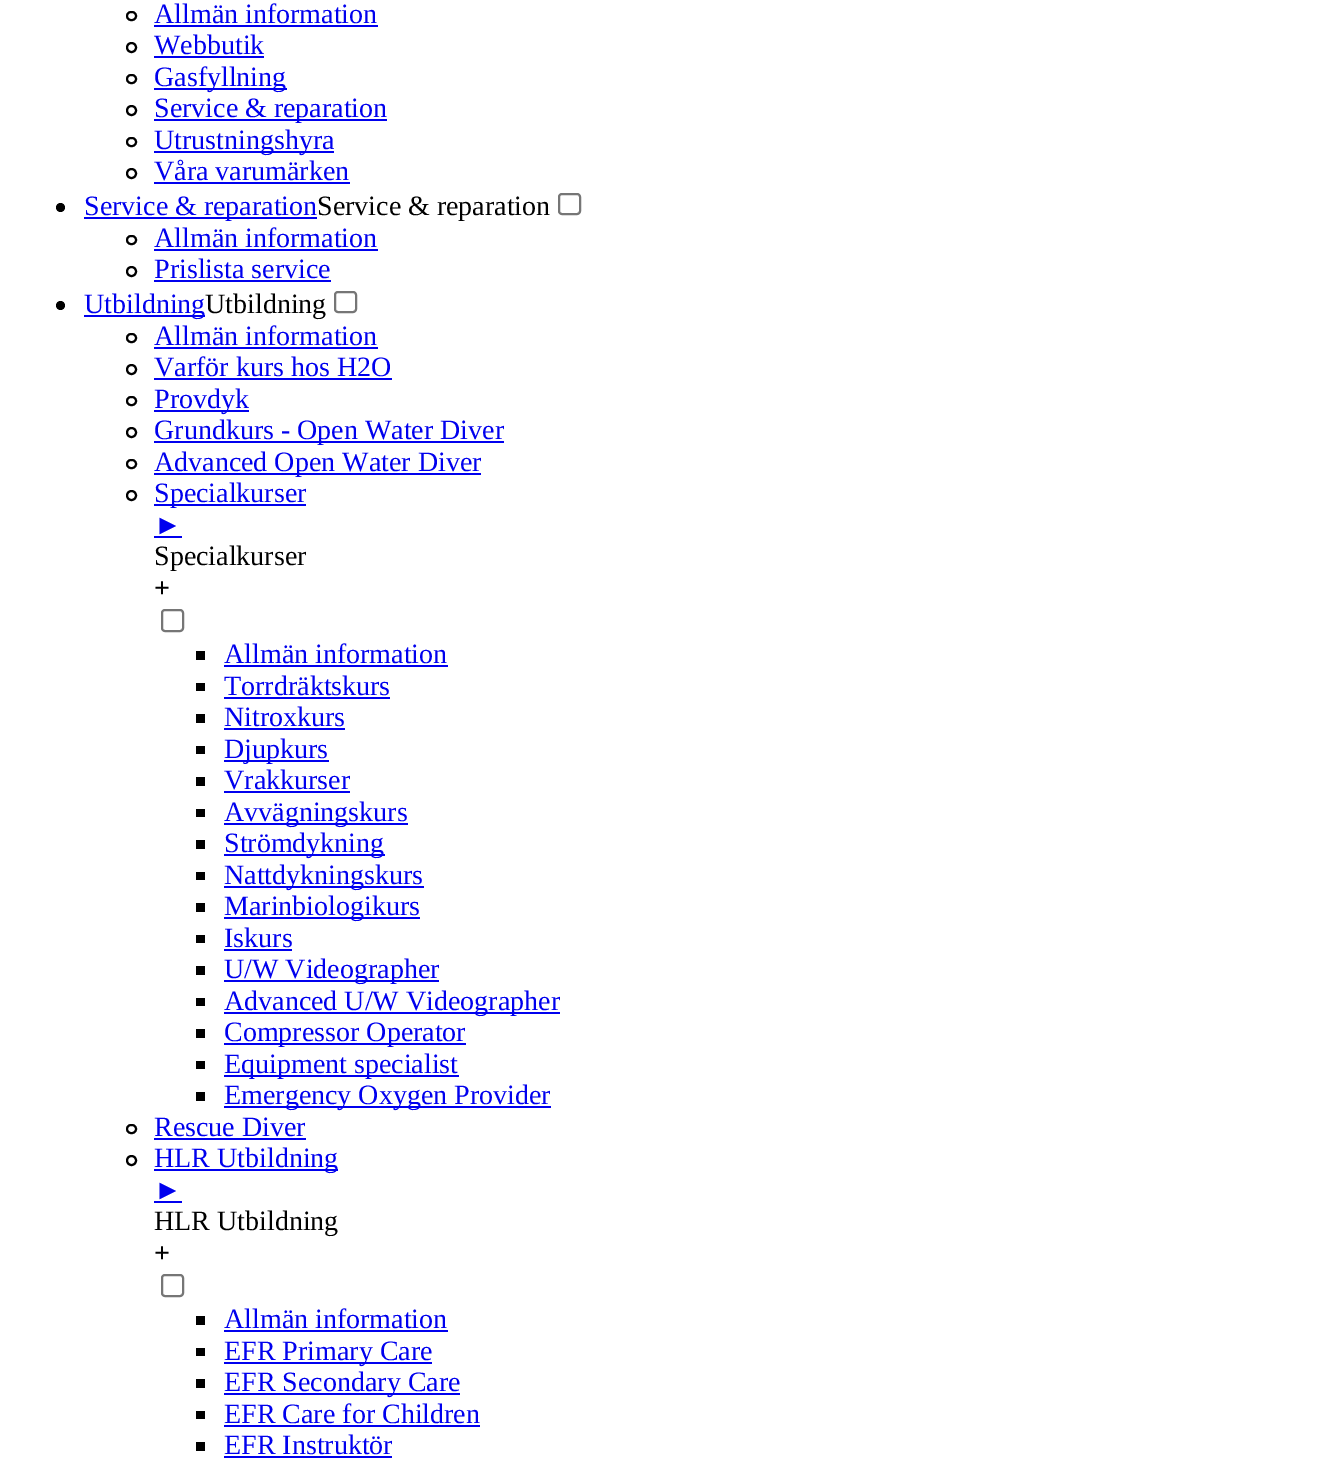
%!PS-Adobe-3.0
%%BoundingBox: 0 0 1335 1461
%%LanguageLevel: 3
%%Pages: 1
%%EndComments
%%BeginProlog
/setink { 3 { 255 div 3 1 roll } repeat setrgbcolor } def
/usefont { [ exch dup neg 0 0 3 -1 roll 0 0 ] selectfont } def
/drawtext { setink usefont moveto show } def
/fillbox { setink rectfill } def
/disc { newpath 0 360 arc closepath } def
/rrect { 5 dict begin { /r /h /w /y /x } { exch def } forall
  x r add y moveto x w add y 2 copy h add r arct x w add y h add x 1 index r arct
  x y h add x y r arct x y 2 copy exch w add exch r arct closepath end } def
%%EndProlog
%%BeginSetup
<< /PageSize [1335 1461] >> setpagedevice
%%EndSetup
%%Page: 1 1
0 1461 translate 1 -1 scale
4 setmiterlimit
0 0 1335 1461 255 255 255 fillbox
0 0 0 setink
2 setlinewidth
127 12 9 8 4 rrect stroke
(Allmän information) 154 23 /LiberationSerif-Regular 28 0 0 238 drawtext
154 25 224 2 0 0 238 fillbox
0 0 0 setink
131.5 47.5 4.5 disc stroke
(Webbutik) 154 54 /LiberationSerif-Regular 28 0 0 238 drawtext
154 56 110 2 0 0 238 fillbox
0 0 0 setink
127 75 9 8 4 rrect stroke
154 88 133 2 0 0 238 fillbox
(Gasfyllning) 154 86 /LiberationSerif-Regular 28 0 0 238 drawtext
0 0 0 setink
131.5 110.5 4.5 disc stroke
154 119 233 2 0 0 238 fillbox
(Service & reparation) 154 117 /LiberationSerif-Regular 28 0 0 238 drawtext
0 0 0 setink
127 138 9 8 4 rrect stroke
154 151 180 2 0 0 238 fillbox
(Utrustningshyra) 154 149 /LiberationSerif-Regular 28 0 0 238 drawtext
0 0 0 setink
131.5 173.5 4.5 disc stroke
(Våra varumärken) 154 180 /LiberationSerif-Regular 28 0 0 238 drawtext
154 182 196 2 0 0 238 fillbox
0 0 0 setink
60.5 207.5 4.5 disc fill
84 217 233 2 0 0 238 fillbox
(Service & reparation) 84 215 /LiberationSerif-Regular 28 0 0 238 drawtext
(Service & reparation) 317 215 /LiberationSerif-Regular 28 0 0 0 drawtext
118 118 118 setink
559 194 21 20 3 rrect stroke
0 0 0 setink
127 236 9 8 4 rrect stroke
(Allmän information) 154 247 /LiberationSerif-Regular 28 0 0 238 drawtext
154 249 224 2 0 0 238 fillbox
0 0 0 setink
131.5 271.5 4.5 disc stroke
(Prislista service) 154 278 /LiberationSerif-Regular 28 0 0 238 drawtext
154 280 177 2 0 0 238 fillbox
0 0 0 setink
60.5 305.5 4.5 disc fill
84 315 121 2 0 0 238 fillbox
(Utbildning) 84 313 /LiberationSerif-Regular 28 0 0 238 drawtext
(Utbildning) 205 313 /LiberationSerif-Regular 28 0 0 0 drawtext
118 118 118 setink
335 292 21 20 3 rrect stroke
0 0 0 setink
127 334 9 8 4 rrect stroke
(Allmän information) 154 345 /LiberationSerif-Regular 28 0 0 238 drawtext
154 347 224 2 0 0 238 fillbox
0 0 0 setink
131.5 369.5 4.5 disc stroke
(Varför kurs hos H2O) 154 376 /LiberationSerif-Regular 28 0 0 238 drawtext
154 378 238 2 0 0 238 fillbox
0 0 0 setink
127 397 9 8 4 rrect stroke
154 410 95 2 0 0 238 fillbox
(Provdyk) 154 408 /LiberationSerif-Regular 28 0 0 238 drawtext
0 0 0 setink
131.5 432.5 4.5 disc stroke
154 441 350 2 0 0 238 fillbox
(Grundkurs - Open Water Diver) 154 439 /LiberationSerif-Regular 28 0 0 238 drawtext
0 0 0 setink
127 460 9 8 4 rrect stroke
154 473 327 2 0 0 238 fillbox
(Advanced Open Water Diver) 154 471 /LiberationSerif-Regular 28 0 0 238 drawtext
0 0 0 setink
131.5 495.5 4.5 disc stroke
154 504 152 2 0 0 238 fillbox
(Specialkurser) 154 502 /LiberationSerif-Regular 28 0 0 238 drawtext
(►) 154 534 /LiberationSerif-Regular 28 0 0 238 drawtext
154 536 28 2 0 0 238 fillbox
(Specialkurser) 154 565 /LiberationSerif-Regular 28 0 0 0 drawtext
(+) 154 597 /LiberationSerif-Bold 28 0 0 0 drawtext
118 118 118 setink
162 610 21 21 3 rrect stroke
196 651 9 9 0 0 0 fillbox
(Allmän information) 224 663 /LiberationSerif-Regular 28 0 0 238 drawtext
224 665 224 2 0 0 238 fillbox
196 683 9 8 0 0 0 fillbox
(Torrdräktskurs) 224 695 /LiberationSerif-Regular 28 0 0 238 drawtext
224 697 166 2 0 0 238 fillbox
196 714 9 9 0 0 0 fillbox
(Nitroxkurs) 224 726 /LiberationSerif-Regular 28 0 0 238 drawtext
224 728 121 2 0 0 238 fillbox
196 746 9 8 0 0 0 fillbox
224 760 105 2 0 0 238 fillbox
(Djupkurs) 224 758 /LiberationSerif-Regular 28 0 0 238 drawtext
196 777 9 9 0 0 0 fillbox
(Vrakkurser) 224 789 /LiberationSerif-Regular 28 0 0 238 drawtext
224 791 126 2 0 0 238 fillbox
196 809 9 8 0 0 0 fillbox
224 823 184 2 0 0 238 fillbox
(Avvägningskurs) 224 821 /LiberationSerif-Regular 28 0 0 238 drawtext
196 840 9 9 0 0 0 fillbox
224 854 161 2 0 0 238 fillbox
(Strömdykning) 224 852 /LiberationSerif-Regular 28 0 0 238 drawtext
196 872 9 8 0 0 0 fillbox
224 886 200 2 0 0 238 fillbox
(Nattdykningskurs) 224 884 /LiberationSerif-Regular 28 0 0 238 drawtext
196 903 9 9 0 0 0 fillbox
224 917 196 2 0 0 238 fillbox
(Marinbiologikurs) 224 915 /LiberationSerif-Regular 28 0 0 238 drawtext
196 935 9 8 0 0 0 fillbox
(Iskurs) 224 947 /LiberationSerif-Regular 28 0 0 238 drawtext
224 949 68 2 0 0 238 fillbox
196 966 9 9 0 0 0 fillbox
224 980 215 2 0 0 238 fillbox
(U/W Videographer) 224 978 /LiberationSerif-Regular 28 0 0 238 drawtext
196 998 9 8 0 0 0 fillbox
224 1012 336 2 0 0 238 fillbox
(Advanced U/W Videographer) 224 1010 /LiberationSerif-Regular 28 0 0 238 drawtext
196 1029 9 9 0 0 0 fillbox
224 1043 242 2 0 0 238 fillbox
(Compressor Operator) 224 1041 /LiberationSerif-Regular 28 0 0 238 drawtext
196 1061 9 8 0 0 0 fillbox
224 1075 235 2 0 0 238 fillbox
(Equipment specialist) 224 1073 /LiberationSerif-Regular 28 0 0 238 drawtext
196 1092 9 9 0 0 0 fillbox
224 1106 327 2 0 0 238 fillbox
(Emergency Oxygen Provider) 224 1104 /LiberationSerif-Regular 28 0 0 238 drawtext
0 0 0 setink
127 1125 9 8 4 rrect stroke
(Rescue Diver) 154 1136 /LiberationSerif-Regular 28 0 0 238 drawtext
154 1138 152 2 0 0 238 fillbox
0 0 0 setink
131.5 1160.5 4.5 disc stroke
154 1169 184 2 0 0 238 fillbox
(HLR Utbildning) 154 1167 /LiberationSerif-Regular 28 0 0 238 drawtext
(►) 154 1199 /LiberationSerif-Regular 28 0 0 238 drawtext
154 1201 28 2 0 0 238 fillbox
(HLR Utbildning) 154 1230 /LiberationSerif-Regular 28 0 0 0 drawtext
(+) 154 1262 /LiberationSerif-Bold 28 0 0 0 drawtext
118 118 118 setink
162 1275 21 21 3 rrect stroke
196 1316 9 9 0 0 0 fillbox
(Allmän information) 224 1328 /LiberationSerif-Regular 28 0 0 238 drawtext
224 1330 224 2 0 0 238 fillbox
196 1348 9 8 0 0 0 fillbox
224 1362 208 2 0 0 238 fillbox
(EFR Primary Care) 224 1360 /LiberationSerif-Regular 28 0 0 238 drawtext
196 1379 9 9 0 0 0 fillbox
224 1393 236 2 0 0 238 fillbox
(EFR Secondary Care) 224 1391 /LiberationSerif-Regular 28 0 0 238 drawtext
196 1411 9 8 0 0 0 fillbox
(EFR Care for Children) 224 1423 /LiberationSerif-Regular 28 0 0 238 drawtext
224 1425 256 2 0 0 238 fillbox
196 1442 9 9 0 0 0 fillbox
(EFR Instruktör) 224 1454 /LiberationSerif-Regular 28 0 0 238 drawtext
224 1456 168 2 0 0 238 fillbox
showpage
%%EOF
